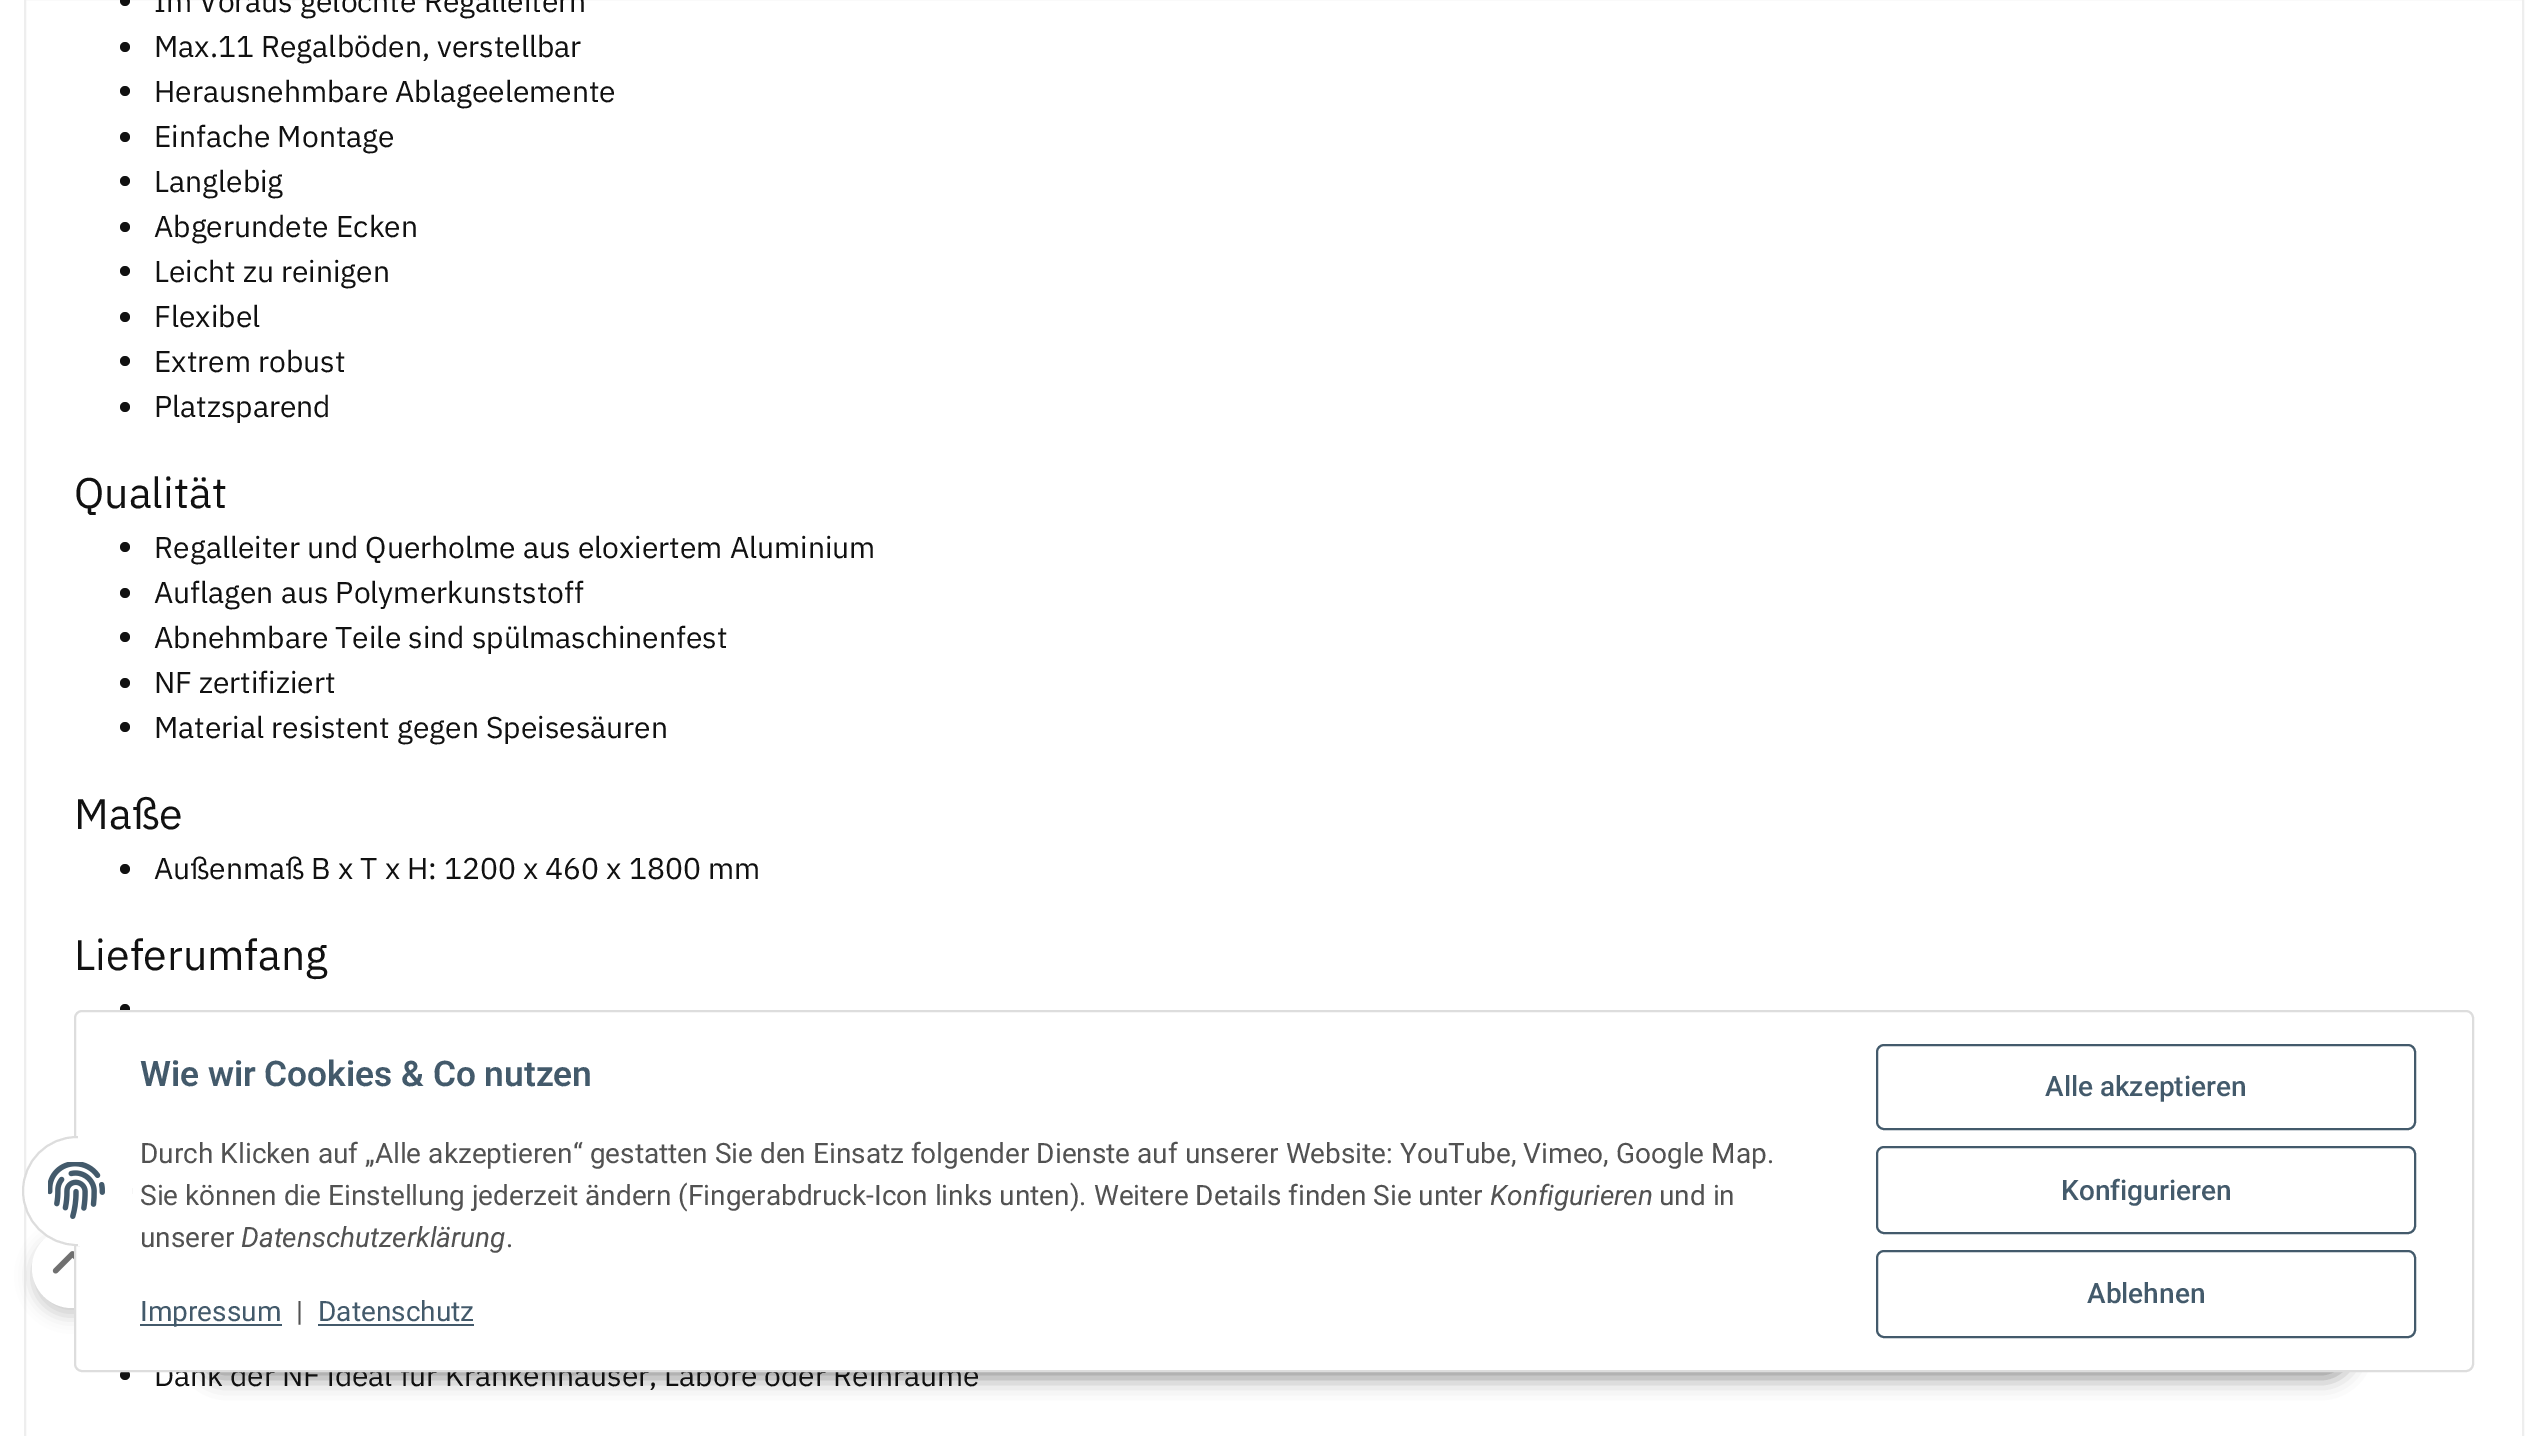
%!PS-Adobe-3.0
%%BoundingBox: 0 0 2547 1436
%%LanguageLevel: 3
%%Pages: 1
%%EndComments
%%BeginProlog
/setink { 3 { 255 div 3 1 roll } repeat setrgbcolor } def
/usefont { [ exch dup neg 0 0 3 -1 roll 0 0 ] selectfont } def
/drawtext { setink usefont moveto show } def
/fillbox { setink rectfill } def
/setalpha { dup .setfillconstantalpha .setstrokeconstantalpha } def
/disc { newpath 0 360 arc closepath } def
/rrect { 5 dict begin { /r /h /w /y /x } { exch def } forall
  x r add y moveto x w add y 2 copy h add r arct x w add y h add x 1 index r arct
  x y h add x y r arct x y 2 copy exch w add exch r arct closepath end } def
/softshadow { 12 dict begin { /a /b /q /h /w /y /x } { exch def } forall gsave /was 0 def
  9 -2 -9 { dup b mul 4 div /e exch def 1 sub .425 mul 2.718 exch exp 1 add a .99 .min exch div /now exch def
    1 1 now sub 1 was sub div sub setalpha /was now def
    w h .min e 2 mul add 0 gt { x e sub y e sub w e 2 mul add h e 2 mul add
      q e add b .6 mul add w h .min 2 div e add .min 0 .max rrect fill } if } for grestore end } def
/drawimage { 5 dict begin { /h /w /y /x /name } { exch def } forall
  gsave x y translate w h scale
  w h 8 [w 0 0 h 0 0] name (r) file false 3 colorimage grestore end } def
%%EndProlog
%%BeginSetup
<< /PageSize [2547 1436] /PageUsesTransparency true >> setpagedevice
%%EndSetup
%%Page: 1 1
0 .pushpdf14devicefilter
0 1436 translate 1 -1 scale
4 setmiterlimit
0 0 2547 1436 255 255 255 fillbox
238 238 238 setink
2 setlinewidth
25 -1 2498 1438 rectstroke
17 17 17 setink
125 1 5 disc fill
(Im Voraus gelochte Regalleitern) 154 12 /IBMPlexSans-Regular 30 17 17 17 drawtext
125 47 5 disc fill
(Max.11 Regalböden, verstellbar) 154 57 /IBMPlexSans-Regular 30 17 17 17 drawtext
125 91 5 disc fill
(Herausnehmbare Ablageelemente) 154 102 /IBMPlexSans-Regular 30 17 17 17 drawtext
125 137 5 disc fill
(Einfache Montage) 154 147 /IBMPlexSans-Regular 30 17 17 17 drawtext
125 181 5 disc fill
(Langlebig) 154 192 /IBMPlexSans-Regular 30 17 17 17 drawtext
125 227 5 disc fill
(Abgerundete Ecken) 154 237 /IBMPlexSans-Regular 30 17 17 17 drawtext
125 271 5 disc fill
(Leicht zu reinigen) 154 282 /IBMPlexSans-Regular 30 17 17 17 drawtext
125 317 5 disc fill
(Flexibel) 154 327 /IBMPlexSans-Regular 30 17 17 17 drawtext
125 361 5 disc fill
(Extrem robust) 154 372 /IBMPlexSans-Regular 30 17 17 17 drawtext
125 407 5 disc fill
(Platzsparend) 154 417 /IBMPlexSans-Regular 30 17 17 17 drawtext
(Qualität) 74 508 /IBMPlexSans-Regular 42.75 17 17 17 drawtext
125 547 5 disc fill
(Regalleiter und Querholme aus eloxiertem Aluminium) 154 558 /IBMPlexSans-Regular 30 17 17 17 drawtext
125 593 5 disc fill
(Auflagen aus Polymerkunststoff) 154 603 /IBMPlexSans-Regular 30 17 17 17 drawtext
125 637 5 disc fill
(Abnehmbare Teile sind spülmaschinenfest) 154 648 /IBMPlexSans-Regular 30 17 17 17 drawtext
125 683 5 disc fill
(NF zertifiziert) 154 693 /IBMPlexSans-Regular 30 17 17 17 drawtext
125 727 5 disc fill
(Material resistent gegen Speisesäuren) 154 738 /IBMPlexSans-Regular 30 17 17 17 drawtext
(Maße) 74 829 /IBMPlexSans-Regular 42.75 17 17 17 drawtext
125 869 5 disc fill
(Außenmaß B x T x H: 1200 x 460 x 1800 mm) 154 879 /IBMPlexSans-Regular 30 17 17 17 drawtext
(Lieferumfang) 74 970 /IBMPlexSans-Regular 42.75 17 17 17 drawtext
125 1009 5 disc fill
125 1375 5 disc fill
(Dank der NF ideal für Krankenhäuser, Labore oder Reinräume) 154 1386 /IBMPlexSans-Regular 30 17 17 17 drawtext
32 1236 80 80 40 8 0.2 softshadow
255 255 255 setink
72 1268 40 disc fill
(assets/img1.rgb) 52 1251 22 23 drawimage
17 17 17 setink
196 1314 2156 64 32 10 0.45 softshadow
255 255 255 setink
75 1011 2398 360 7 rrect gsave fill grestore
221 221 221 setink
stroke
255 255 255 setink
77 1191 54 disc gsave fill grestore
221 221 221 setink
stroke
78 1136 54 110 255 255 255 fillbox
(assets/img2.rgb) 48 1162 57 57 drawimage
(Wie wir Cookies & Co nutzen) 140 1086 /Roboto-SemiBold 35.25 67 90 107 drawtext
(Durch Klicken auf „Alle akzeptieren“ gestatten Sie den Einsatz folgender Dienste auf unserer Website: YouTube, Vimeo, Google Map.) 140 1163 /Roboto-Regular 28 82 82 82 drawtext
(Sie können die Einstellung jederzeit ändern \(Fingerabdruck-Icon links unten\). Weitere Details finden Sie unter) 140 1205 /Roboto-Regular 28 82 82 82 drawtext
(Konfigurieren) 1490 1205 /Roboto-Italic 28 82 82 82 drawtext
(und in) 1659 1205 /Roboto-Regular 28 82 82 82 drawtext
(unserer) 140 1247 /Roboto-Regular 28 82 82 82 drawtext
(Datenschutzerklärung) 241 1247 /Roboto-Italic 28 82 82 82 drawtext
(.) 506 1247 /Roboto-Regular 28 82 82 82 drawtext
140 1324 142 2 67 90 107 fillbox
(Impressum) 140 1321 /Roboto-Regular 28 67 90 107 drawtext
(|) 296 1321 /Roboto-Regular 28 82 82 82 drawtext
(Datenschutz) 318 1321 /Roboto-Regular 28 67 90 107 drawtext
318 1324 156 2 67 90 107 fillbox
1877 1045 538 84 7 rrect stroke
(Alle akzeptieren) 2045 1096 /Roboto-Medium 28 67 90 107 drawtext
1877 1147 538 86 7 rrect stroke
(Konfigurieren) 2061 1200 /Roboto-Medium 28 67 90 107 drawtext
1877 1251 538 86 7 rrect stroke
(Ablehnen) 2087 1303 /Roboto-Medium 28 67 90 107 drawtext
.poppdf14devicefilter showpage
%%EOF
